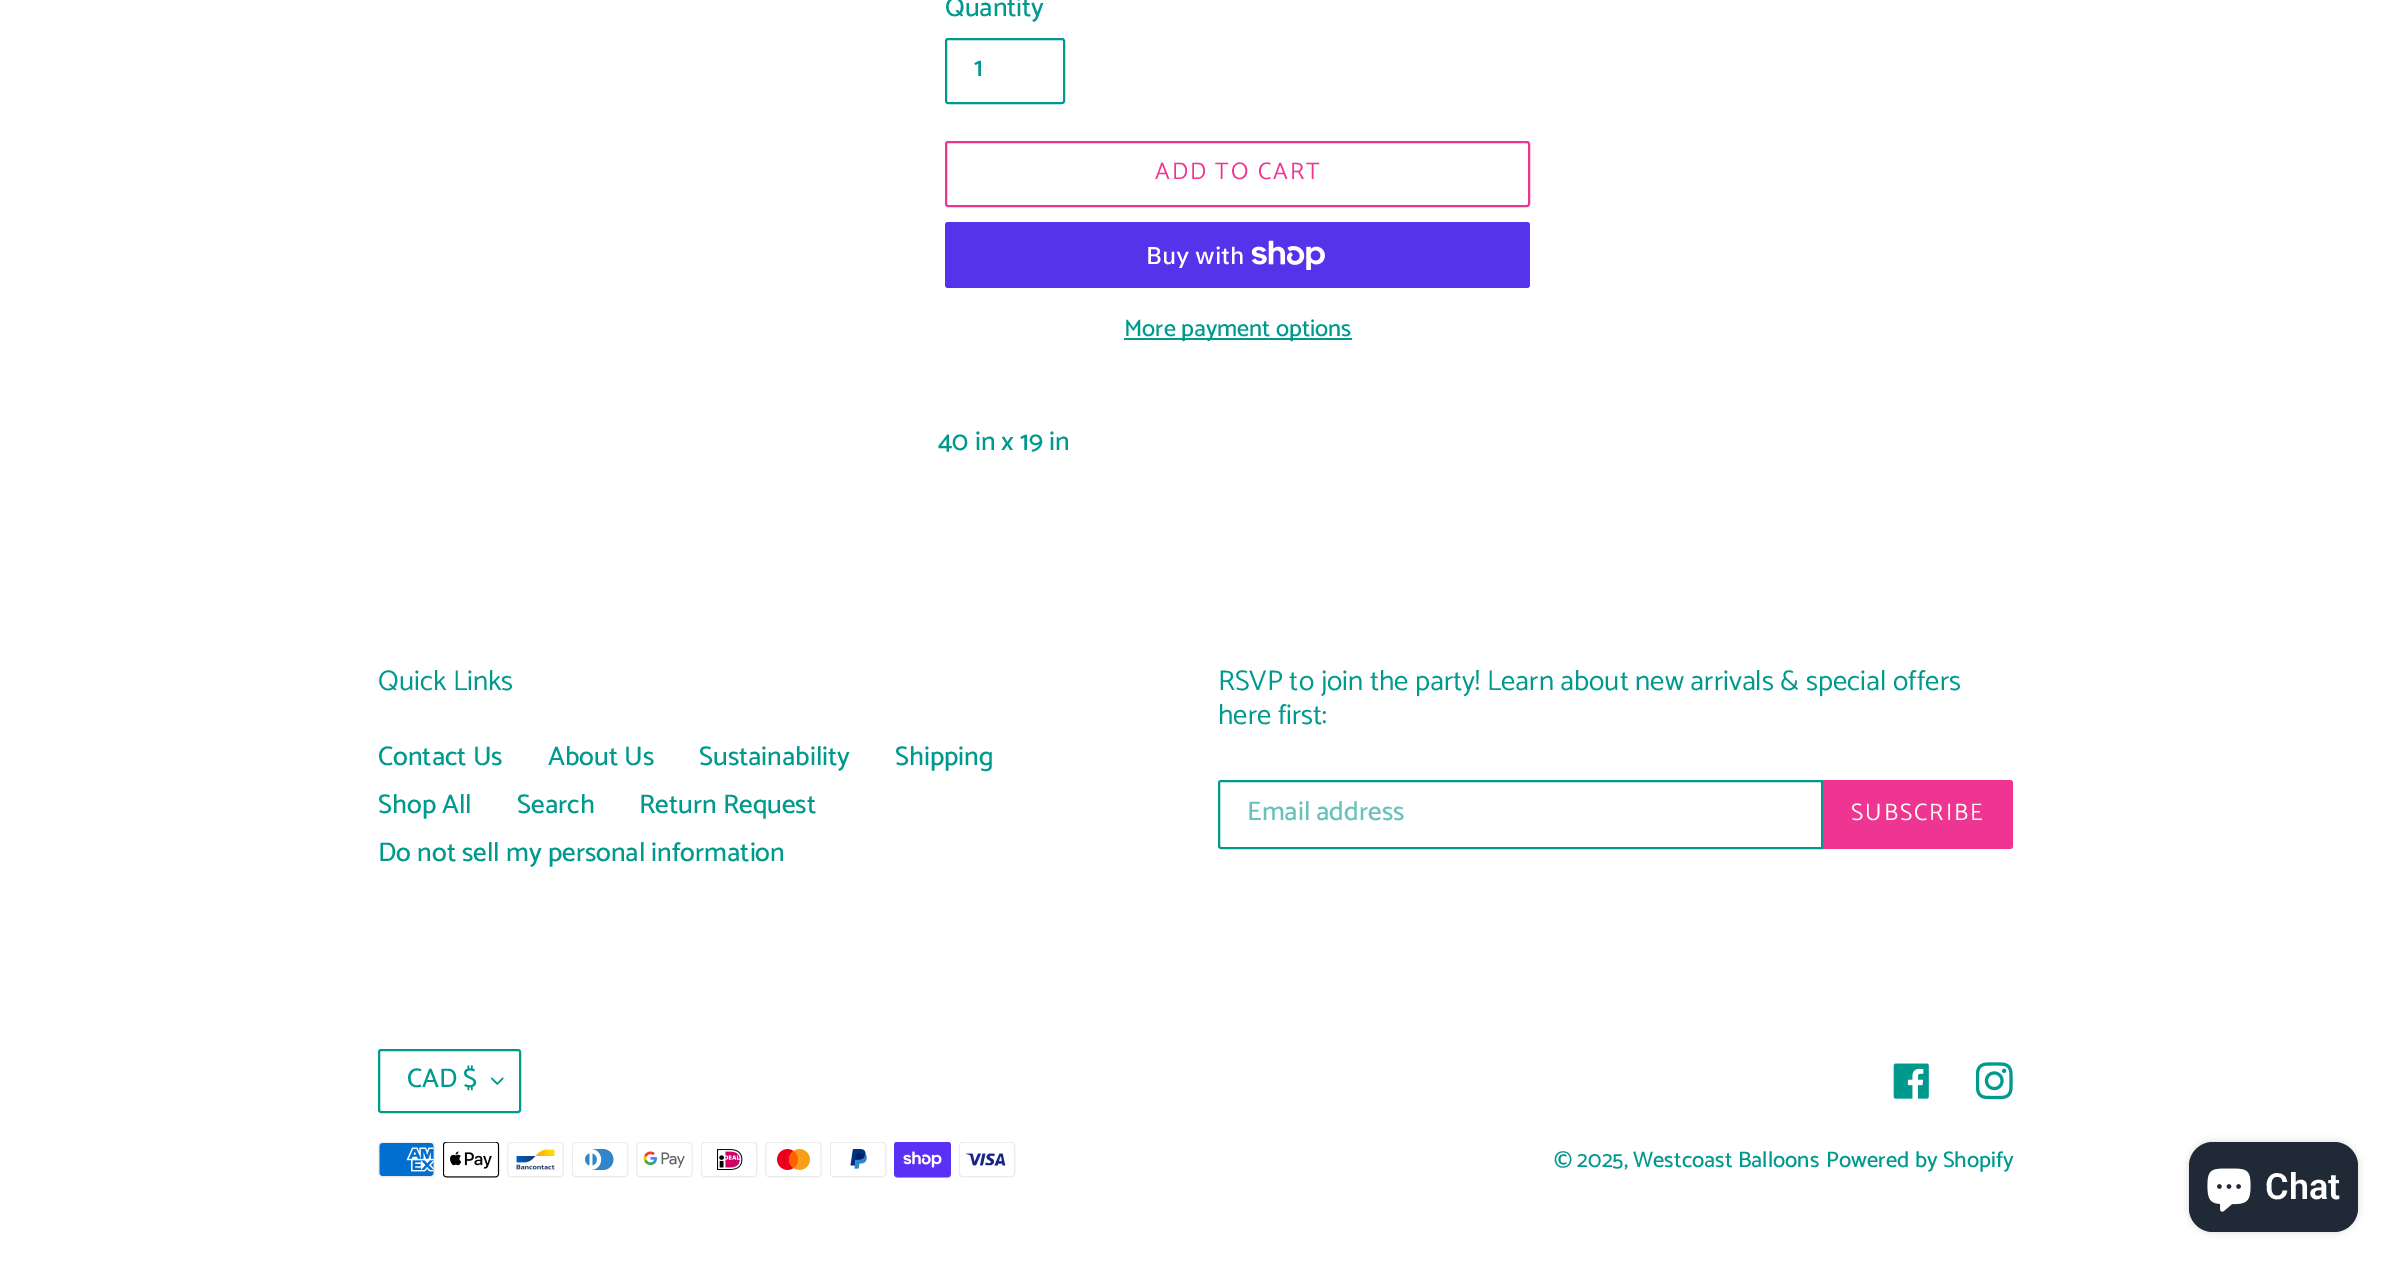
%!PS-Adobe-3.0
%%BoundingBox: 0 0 2391 1262
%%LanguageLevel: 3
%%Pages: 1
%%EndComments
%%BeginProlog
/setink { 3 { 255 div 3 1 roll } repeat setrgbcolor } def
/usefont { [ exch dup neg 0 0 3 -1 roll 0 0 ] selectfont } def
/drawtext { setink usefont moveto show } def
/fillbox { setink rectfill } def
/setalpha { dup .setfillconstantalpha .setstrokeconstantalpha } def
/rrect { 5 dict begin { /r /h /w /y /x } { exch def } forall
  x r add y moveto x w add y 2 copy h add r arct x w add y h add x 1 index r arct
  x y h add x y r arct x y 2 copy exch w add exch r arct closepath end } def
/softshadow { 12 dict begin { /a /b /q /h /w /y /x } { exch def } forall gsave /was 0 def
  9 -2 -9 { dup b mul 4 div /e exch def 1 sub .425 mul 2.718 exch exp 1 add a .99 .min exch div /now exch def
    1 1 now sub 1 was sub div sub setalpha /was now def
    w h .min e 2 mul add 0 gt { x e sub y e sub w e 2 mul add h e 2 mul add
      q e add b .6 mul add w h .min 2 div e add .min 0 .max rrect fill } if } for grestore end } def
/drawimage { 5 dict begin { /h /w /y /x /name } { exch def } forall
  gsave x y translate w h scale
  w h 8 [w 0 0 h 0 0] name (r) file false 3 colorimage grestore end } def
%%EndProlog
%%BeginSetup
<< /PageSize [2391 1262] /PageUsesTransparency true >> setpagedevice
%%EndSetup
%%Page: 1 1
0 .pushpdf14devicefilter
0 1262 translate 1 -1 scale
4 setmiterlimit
0 0 2391 1262 255 255 255 fillbox
(Quantity) 945 16 /Catamaran-Medium 27 0 153 142 drawtext
2 setlinewidth
946 39 118 64 2 rrect stroke
(1) 974 76 /Catamaran-Medium 27 0 153 142 drawtext
237 53 145 setink
946 142 583 64 2 rrect stroke
/Catamaran-Regular 24 usefont
1155 179 moveto 2 0 (ADD TO CART) ashow
84 51 235 setink
945 222 585 66 3 rrect fill
(Buy with) 1146 264 /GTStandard-Medium 24 255 255 255 drawtext
(assets/img1.rgb) 1251 240 74 30 drawimage
1124 338 228 2 0 153 142 fillbox
(More payment options) 1124 336 /Catamaran-Medium 24 0 153 142 drawtext
(40 in x 19 in) 938 450 /Catamaran-Medium 27 0 153 142 drawtext
(Quick Links) 378 690 /Catamaran-Regular 28.5 0 153 142 drawtext
(Contact Us) 378 765 /Catamaran-Medium 27 0 153 142 drawtext
(About Us) 548 765 /Catamaran-Medium 27 0 153 142 drawtext
(Sustainability) 699 765 /Catamaran-Medium 27 0 153 142 drawtext
(Shipping) 895 765 /Catamaran-Medium 27 0 153 142 drawtext
(Shop All) 378 813 /Catamaran-Medium 27 0 153 142 drawtext
(Search) 517 813 /Catamaran-Medium 27 0 153 142 drawtext
(Return Request) 639 813 /Catamaran-Medium 27 0 153 142 drawtext
(Do not sell my personal information) 378 861 /Catamaran-Medium 27 0 153 142 drawtext
(RSVP to join the party! Learn about new arrivals & special offers) 1218 690 /Catamaran-Regular 28.5 0 153 142 drawtext
(here first:) 1218 724 /Catamaran-Regular 28.5 0 153 142 drawtext
1221 781 moveto 1822 781 lineto 1822 848 lineto 1221 848 lineto 1220 848 1219 847 1219 846 curveto 1219 783 lineto 1219 782 1220 781 1221 781 curveto closepath stroke
(Email address) 1247 820 /Catamaran-Medium 27 102 194 187 drawtext
237 53 145 setink
1823 780 moveto 2010 780 lineto 2011.5 780 2013 781.5 2013 783 curveto 2013 846 lineto 2013 847.5 2011.5 849 2010 849 curveto 1823 849 lineto closepath fill
/Catamaran-Regular 24 usefont
250 250 241 setink
1851 820 moveto 2 0 (SUBSCRIBE) ashow
(assets/img2.rgb) 491 1077 13 8 drawimage
0 153 142 setink
379 1050 141 62 2 rrect stroke
(CAD $) 407 1087 /Catamaran-Medium 27 0 153 142 drawtext
(assets/img3.rgb) 1893 1063 36 36 drawimage
(assets/img4.rgb) 1976 1062 37 38 drawimage
(assets/img5.rgb) 378 1142 57 36 drawimage
(assets/img6.rgb) 443 1142 57 36 drawimage
(assets/img7.rgb) 507 1142 57 36 drawimage
(assets/img8.rgb) 572 1142 57 36 drawimage
(assets/img9.rgb) 636 1142 57 36 drawimage
(assets/img10.rgb) 701 1142 57 36 drawimage
(assets/img11.rgb) 765 1142 57 36 drawimage
(assets/img12.rgb) 830 1142 57 36 drawimage
(assets/img13.rgb) 894 1142 57 36 drawimage
(assets/img14.rgb) 959 1142 57 36 drawimage
(© 2025, Westcoast Balloons) 1554 1167 /Catamaran-Medium 22.5 0 153 142 drawtext
(Powered by Shopify) 1826 1167 /Catamaran-Medium 22.5 0 153 142 drawtext
0 0 0 setink
2189 1142 169 90 24 4 0.15 softshadow
32 42 54 setink
2189 1142 169 90 24 rrect fill
(assets/img15.rgb) 2207 1168 44 44 drawimage
(Chat) 2265 1199 /Roboto-SemiBold 36 255 255 255 drawtext
.poppdf14devicefilter showpage
%%EOF
